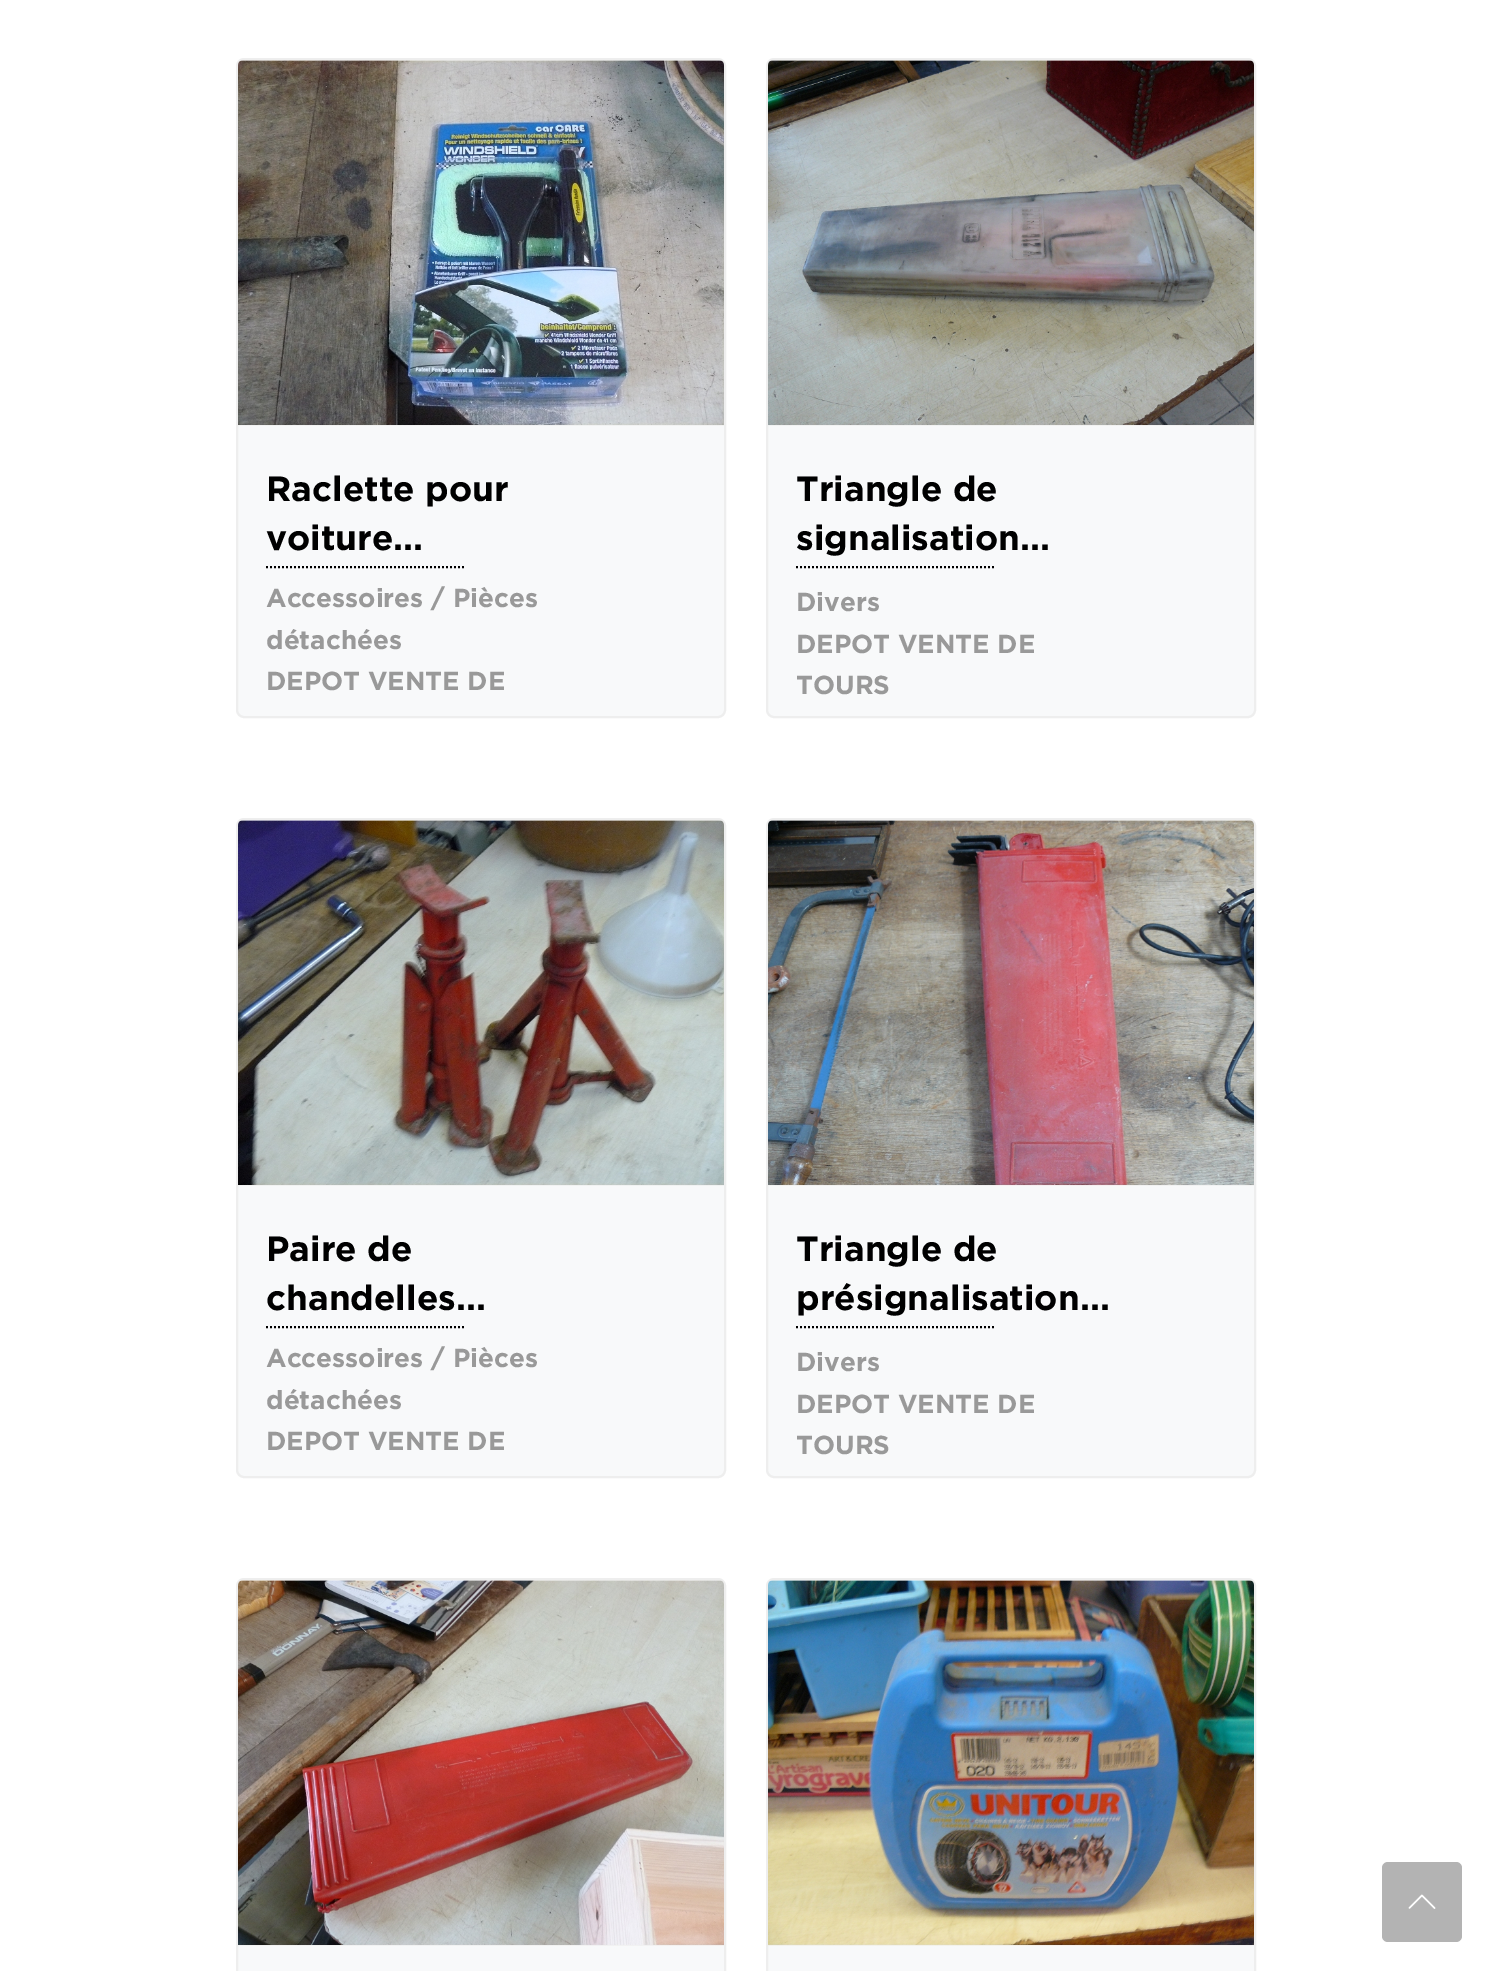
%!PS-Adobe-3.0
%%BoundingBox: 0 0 1492 1971
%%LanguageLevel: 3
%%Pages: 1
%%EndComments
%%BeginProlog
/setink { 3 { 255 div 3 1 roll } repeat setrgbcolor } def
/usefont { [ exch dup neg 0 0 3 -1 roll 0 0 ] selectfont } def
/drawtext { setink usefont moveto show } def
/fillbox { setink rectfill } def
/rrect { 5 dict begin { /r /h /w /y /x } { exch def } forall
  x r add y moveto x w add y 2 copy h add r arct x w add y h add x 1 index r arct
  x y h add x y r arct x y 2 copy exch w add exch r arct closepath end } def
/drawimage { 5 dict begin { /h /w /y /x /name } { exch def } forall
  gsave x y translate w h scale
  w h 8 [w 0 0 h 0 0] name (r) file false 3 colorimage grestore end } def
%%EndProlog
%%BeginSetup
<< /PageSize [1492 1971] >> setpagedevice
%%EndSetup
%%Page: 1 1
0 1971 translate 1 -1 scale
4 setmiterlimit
0 0 1492 1971 255 255 255 fillbox
248 249 250 setink
237 59 488 658 7 rrect gsave fill grestore
238 238 238 setink
2 setlinewidth
stroke
(assets/img1.rgb) 238 60 486 366 drawimage
(Raclette pour) 266 501 /Gotham-Bold 35 0 0 0 drawtext
(voiture...) 266 550 /Gotham-Bold 35 0 0 0 drawtext
[2 2] 0 setdash
266 567 moveto 466 567 lineto stroke
(Accessoires / Pièces) 266 607 /Gotham-Bold 26 153 153 153 drawtext
(détachées) 266 649 /Gotham-Bold 26 153 153 153 drawtext
(DEPOT VENTE DE) 266 690 /Gotham-Bold 26 153 153 153 drawtext
248 249 250 setink
767 59 488 658 7 rrect gsave fill grestore
238 238 238 setink
[] 0 setdash
stroke
(assets/img2.rgb) 768 60 486 366 drawimage
(Triangle de) 796 501 /Gotham-Bold 35 0 0 0 drawtext
(signalisation...) 796 550 /Gotham-Bold 35 0 0 0 drawtext
[2 2] 0 setdash
796 567 moveto 996 567 lineto stroke
(Divers) 796 611 /Gotham-Bold 26 153 153 153 drawtext
(DEPOT VENTE DE) 796 653 /Gotham-Bold 26 153 153 153 drawtext
(TOURS) 796 694 /Gotham-Bold 26 153 153 153 drawtext
248 249 250 setink
237 819 488 658 7 rrect gsave fill grestore
238 238 238 setink
[] 0 setdash
stroke
(assets/img3.rgb) 238 820 486 366 drawimage
(Paire de) 266 1261 /Gotham-Bold 35 0 0 0 drawtext
(chandelles...) 266 1310 /Gotham-Bold 35 0 0 0 drawtext
[2 2] 0 setdash
266 1327 moveto 466 1327 lineto stroke
(Accessoires / Pièces) 266 1367 /Gotham-Bold 26 153 153 153 drawtext
(détachées) 266 1409 /Gotham-Bold 26 153 153 153 drawtext
(DEPOT VENTE DE) 266 1450 /Gotham-Bold 26 153 153 153 drawtext
248 249 250 setink
767 819 488 658 7 rrect gsave fill grestore
238 238 238 setink
[] 0 setdash
stroke
(assets/img4.rgb) 768 820 486 366 drawimage
(Triangle de) 796 1261 /Gotham-Bold 35 0 0 0 drawtext
(présignalisation...) 796 1310 /Gotham-Bold 35 0 0 0 drawtext
[2 2] 0 setdash
796 1327 moveto 996 1327 lineto stroke
(Divers) 796 1371 /Gotham-Bold 26 153 153 153 drawtext
(DEPOT VENTE DE) 796 1413 /Gotham-Bold 26 153 153 153 drawtext
(TOURS) 796 1454 /Gotham-Bold 26 153 153 153 drawtext
248 249 250 setink
237 1579 488 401 7 rrect gsave fill grestore
238 238 238 setink
[] 0 setdash
stroke
(assets/img5.rgb) 238 1580 486 366 drawimage
248 249 250 setink
767 1579 488 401 7 rrect gsave fill grestore
238 238 238 setink
stroke
(assets/img6.rgb) 768 1580 486 366 drawimage
179 179 179 setink
1382 1862 80 80 6 rrect fill
(assets/img7.rgb) 1408 1894 28 15 drawimage
showpage
%%EOF
